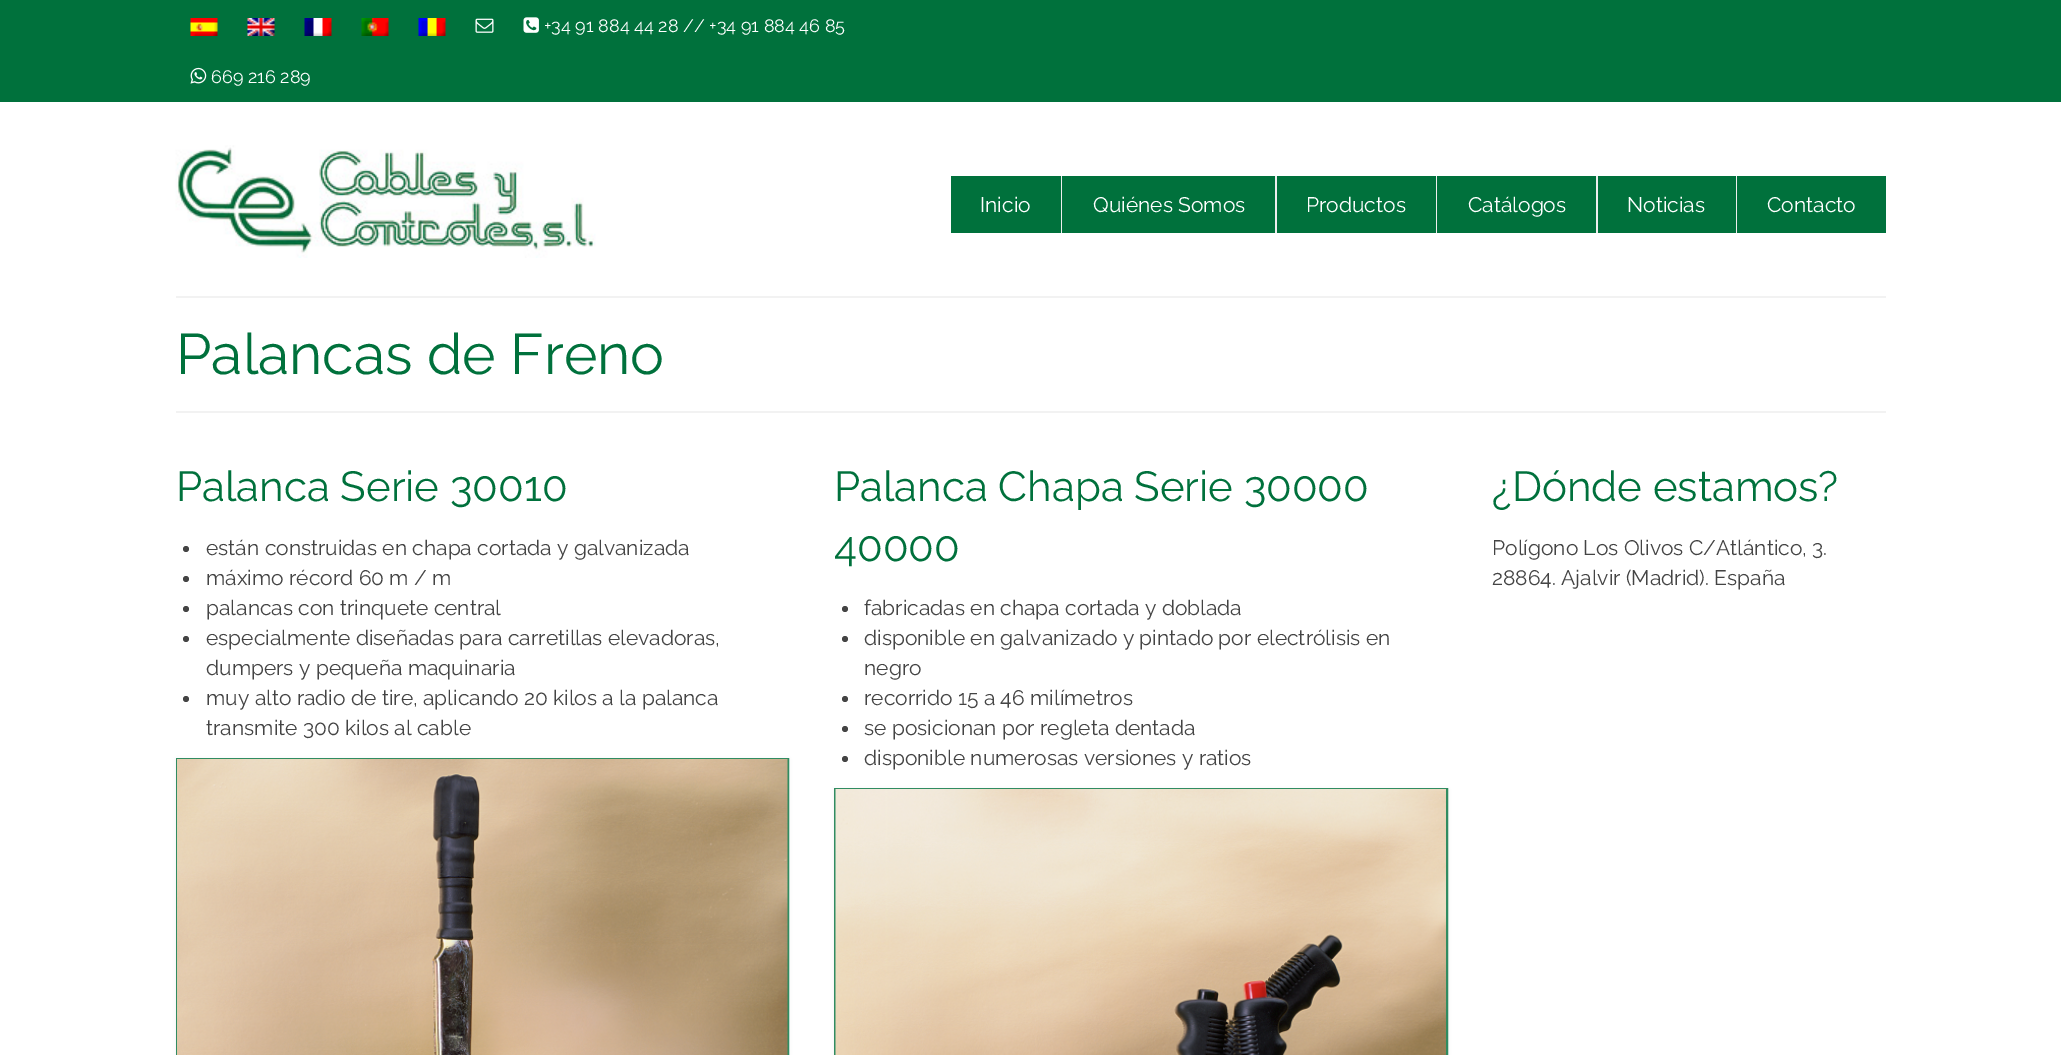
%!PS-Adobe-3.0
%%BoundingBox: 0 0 2061 1055
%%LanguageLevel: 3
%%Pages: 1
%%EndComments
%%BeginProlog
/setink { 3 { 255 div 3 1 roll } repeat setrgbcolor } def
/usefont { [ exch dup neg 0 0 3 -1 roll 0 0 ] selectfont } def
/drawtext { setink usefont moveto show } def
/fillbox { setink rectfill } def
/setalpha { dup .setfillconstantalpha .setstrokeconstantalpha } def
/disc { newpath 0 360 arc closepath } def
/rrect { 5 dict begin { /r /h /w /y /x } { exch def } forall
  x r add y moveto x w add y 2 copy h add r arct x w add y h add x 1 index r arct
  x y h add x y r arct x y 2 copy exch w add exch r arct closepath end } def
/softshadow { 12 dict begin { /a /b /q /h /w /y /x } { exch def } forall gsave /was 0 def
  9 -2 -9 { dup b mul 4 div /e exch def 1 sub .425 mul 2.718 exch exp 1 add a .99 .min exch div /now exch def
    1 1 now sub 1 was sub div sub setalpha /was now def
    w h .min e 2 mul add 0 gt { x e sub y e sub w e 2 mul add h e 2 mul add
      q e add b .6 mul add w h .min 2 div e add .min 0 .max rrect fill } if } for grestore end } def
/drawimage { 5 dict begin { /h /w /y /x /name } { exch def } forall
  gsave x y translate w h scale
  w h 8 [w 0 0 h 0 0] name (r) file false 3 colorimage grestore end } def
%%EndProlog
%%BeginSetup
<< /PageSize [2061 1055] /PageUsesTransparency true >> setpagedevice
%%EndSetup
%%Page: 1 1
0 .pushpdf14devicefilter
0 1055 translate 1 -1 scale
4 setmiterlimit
0 0 2061 1055 255 255 255 fillbox
0 0 2061 102 0 113 60 fillbox
(assets/img1.rgb) 190 18 28 18 drawimage
(assets/img2.rgb) 247 18 28 18 drawimage
(assets/img3.rgb) 304 18 28 18 drawimage
(assets/img4.rgb) 361 18 28 18 drawimage
(assets/img5.rgb) 418 18 28 18 drawimage
(assets/img6.rgb) 475 18 19 15 drawimage
(assets/img7.rgb) 523 17 16 16 drawimage
(+34 91 884 44 28 // +34 91 884 46 85) 544 32 /Raleway-Regular 18 255 255 255 drawtext
(assets/img8.rgb) 190 67 17 17 drawimage
(669 216 289) 211 83 /Raleway-Regular 18 255 255 255 drawtext
(assets/img9.rgb) 175 145 421 113 drawimage
1061 176 1 57 238 238 238 fillbox
951 176 110 57 0 113 60 fillbox
(Inicio) 980 212 /Raleway-Regular 21 255 255 255 drawtext
1275 176 2 57 238 238 238 fillbox
1062 176 213 57 0 113 60 fillbox
(Quiénes Somos) 1093 212 /Raleway-Regular 21 255 255 255 drawtext
1436 176 1 57 238 238 238 fillbox
1277 176 159 57 0 113 60 fillbox
(Productos) 1306 212 /Raleway-Regular 21 255 255 255 drawtext
1596 176 2 57 238 238 238 fillbox
1437 176 159 57 0 113 60 fillbox
(Catálogos) 1468 212 /Raleway-Regular 21 255 255 255 drawtext
1736 176 1 57 238 238 238 fillbox
1598 176 138 57 0 113 60 fillbox
(Noticias) 1627 212 /Raleway-Regular 21 255 255 255 drawtext
1737 176 149 57 0 113 60 fillbox
(Contacto) 1767 212 /Raleway-Regular 21 255 255 255 drawtext
176 296 1710 2 242 242 242 fillbox
176 411 1710 2 242 242 242 fillbox
(Palancas de Freno) 176 374 /Raleway-Regular 57 0 113 60 drawtext
(Palanca Serie 30010) 176 501 /Raleway-Regular 42 0 113 60 drawtext
68 68 68 setink
186 549 3 disc fill
(están construidas en chapa cortada y galvanizada) 206 555 /Raleway-Regular 21 68 68 68 drawtext
186 579 3 disc fill
(máximo récord 60 m / m) 206 585 /Raleway-Regular 21 68 68 68 drawtext
186 609 3 disc fill
(palancas con trinquete central) 206 615 /Raleway-Regular 21 68 68 68 drawtext
186 639 3 disc fill
(especialmente diseñadas para carretillas elevadoras,) 206 645 /Raleway-Regular 21 68 68 68 drawtext
(dumpers y pequeña maquinaria) 206 675 /Raleway-Regular 21 68 68 68 drawtext
186 699 3 disc fill
(muy alto radio de tire, aplicando 20 kilos a la palanca) 206 705 /Raleway-Regular 21 68 68 68 drawtext
(transmite 300 kilos al cable) 206 735 /Raleway-Regular 21 68 68 68 drawtext
0 0 0 setink
176 759 613 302 0 2 0.06 softshadow
48 140 97 setink
2 setlinewidth
177 759 611 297 rectstroke
(assets/img10.rgb) 177 759 611 296 drawimage
(Palanca Chapa Serie 30000) 834 501 /Raleway-Regular 42 0 113 60 drawtext
(40000) 834 561 /Raleway-Regular 42 0 113 60 drawtext
68 68 68 setink
845 609 3 disc fill
(fabricadas en chapa cortada y doblada) 864 615 /Raleway-Regular 21 68 68 68 drawtext
845 639 3 disc fill
(disponible en galvanizado y pintado por electrólisis en) 864 645 /Raleway-Regular 21 68 68 68 drawtext
(negro) 864 675 /Raleway-Regular 21 68 68 68 drawtext
845 699 3 disc fill
(recorrido 15 a 46 milímetros) 864 705 /Raleway-Regular 21 68 68 68 drawtext
845 729 3 disc fill
(se posicionan por regleta dentada) 864 735 /Raleway-Regular 21 68 68 68 drawtext
845 759 3 disc fill
(disponible numerosas versiones y ratios) 864 765 /Raleway-Regular 21 68 68 68 drawtext
0 0 0 setink
834 789 614 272 0 2 0.06 softshadow
48 140 97 setink
835 789 612 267 rectstroke
(assets/img11.rgb) 835 789 611 266 drawimage
(¿Dónde estamos?) 1492 501 /Raleway-Regular 42 0 113 60 drawtext
(Polígono Los Olivos C/Atlántico, 3.) 1492 555 /Raleway-Regular 21 68 68 68 drawtext
(28864. Ajalvir \(Madrid\). España) 1492 585 /Raleway-Regular 21 68 68 68 drawtext
.poppdf14devicefilter showpage
%%EOF
